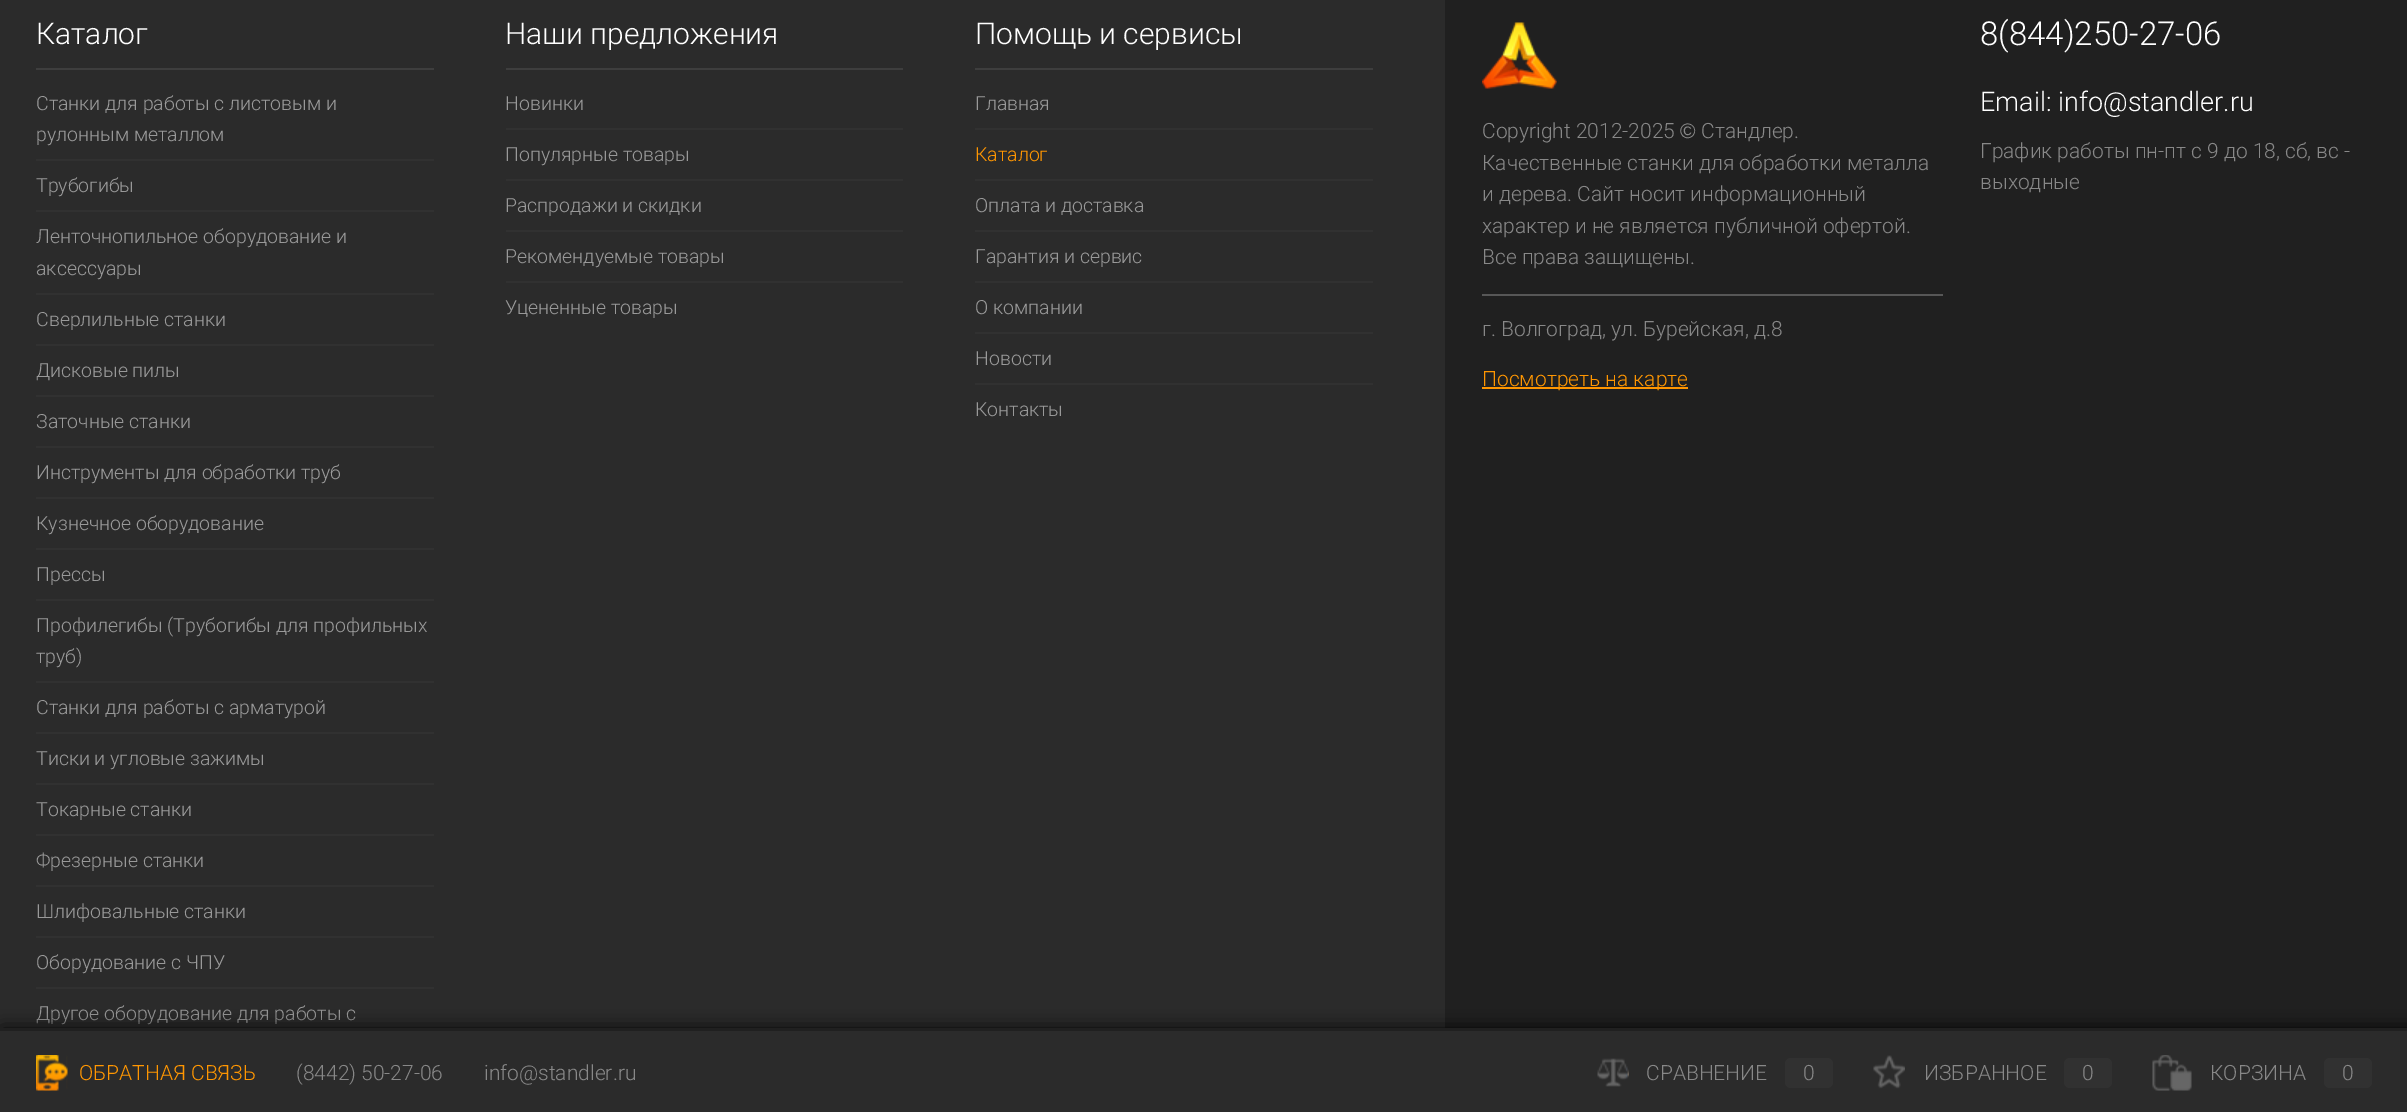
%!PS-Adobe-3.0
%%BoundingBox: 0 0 2407 1112
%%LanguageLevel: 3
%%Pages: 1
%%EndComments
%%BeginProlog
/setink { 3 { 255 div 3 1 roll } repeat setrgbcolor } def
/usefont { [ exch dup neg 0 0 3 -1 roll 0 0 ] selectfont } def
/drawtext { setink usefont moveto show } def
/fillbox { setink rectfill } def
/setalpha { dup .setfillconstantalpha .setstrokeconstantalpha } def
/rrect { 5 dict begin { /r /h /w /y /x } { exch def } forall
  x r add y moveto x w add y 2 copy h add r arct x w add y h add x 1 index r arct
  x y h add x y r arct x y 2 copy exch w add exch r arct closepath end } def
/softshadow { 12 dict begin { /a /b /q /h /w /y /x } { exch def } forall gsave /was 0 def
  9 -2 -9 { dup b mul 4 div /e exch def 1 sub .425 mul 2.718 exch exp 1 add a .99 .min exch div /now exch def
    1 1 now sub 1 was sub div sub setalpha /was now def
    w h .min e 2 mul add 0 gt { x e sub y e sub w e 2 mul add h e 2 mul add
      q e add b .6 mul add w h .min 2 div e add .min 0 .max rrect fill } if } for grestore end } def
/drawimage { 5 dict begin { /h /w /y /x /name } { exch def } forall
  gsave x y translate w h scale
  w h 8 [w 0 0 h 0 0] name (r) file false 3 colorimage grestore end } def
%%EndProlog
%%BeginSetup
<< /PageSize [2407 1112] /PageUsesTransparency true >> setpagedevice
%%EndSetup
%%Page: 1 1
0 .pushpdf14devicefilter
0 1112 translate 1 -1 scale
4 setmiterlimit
0 0 2407 1112 43 43 43 fillbox
36 68 398 2 62 62 62 fillbox
(Каталог) 36 44 /Roboto-Light 30 255 255 255 drawtext
(Станки для работы с листовым и) 36 110 /Roboto-Light 19.5 153 153 153 drawtext
(рулонным металлом) 36 141 /Roboto-Light 19.5 153 153 153 drawtext
36 159 398 2 49 49 49 fillbox
(Трубогибы) 36 192 /Roboto-Light 19.5 153 153 153 drawtext
36 210 398 2 49 49 49 fillbox
(Ленточнопильное оборудование и) 36 243 /Roboto-Light 19.5 153 153 153 drawtext
(аксессуары) 36 275 /Roboto-Light 19.5 153 153 153 drawtext
36 293 398 2 49 49 49 fillbox
(Сверлильные станки) 36 326 /Roboto-Light 19.5 153 153 153 drawtext
36 344 398 2 49 49 49 fillbox
(Дисковые пилы) 36 377 /Roboto-Light 19.5 153 153 153 drawtext
36 395 398 2 49 49 49 fillbox
(Заточные станки) 36 428 /Roboto-Light 19.5 153 153 153 drawtext
36 446 398 2 49 49 49 fillbox
(Инструменты для обработки труб) 36 479 /Roboto-Light 19.5 153 153 153 drawtext
36 497 398 2 49 49 49 fillbox
(Кузнечное оборудование) 36 530 /Roboto-Light 19.5 153 153 153 drawtext
36 548 398 2 49 49 49 fillbox
(Прессы) 36 581 /Roboto-Light 19.5 153 153 153 drawtext
36 599 398 2 49 49 49 fillbox
(Профилегибы \(Трубогибы для профильных) 36 632 /Roboto-Light 19.5 153 153 153 drawtext
(труб\)) 36 663 /Roboto-Light 19.5 153 153 153 drawtext
36 681 398 2 49 49 49 fillbox
(Станки для работы с арматурой) 36 714 /Roboto-Light 19.5 153 153 153 drawtext
36 732 398 2 49 49 49 fillbox
(Тиски и угловые зажимы) 36 765 /Roboto-Light 19.5 153 153 153 drawtext
36 783 398 2 49 49 49 fillbox
(Токарные станки) 36 816 /Roboto-Light 19.5 153 153 153 drawtext
36 834 398 2 49 49 49 fillbox
(Фрезерные станки) 36 867 /Roboto-Light 19.5 153 153 153 drawtext
36 885 398 2 49 49 49 fillbox
(Шлифовальные станки) 36 918 /Roboto-Light 19.5 153 153 153 drawtext
36 936 398 2 49 49 49 fillbox
(Оборудование с ЧПУ) 36 969 /Roboto-Light 19.5 153 153 153 drawtext
36 987 398 2 49 49 49 fillbox
(Другое оборудование для работы с) 36 1020 /Roboto-Light 19.5 153 153 153 drawtext
506 68 397 2 62 62 62 fillbox
(Наши предложения) 505 44 /Roboto-Light 30 255 255 255 drawtext
(Новинки) 505 110 /Roboto-Light 19.5 153 153 153 drawtext
506 128 397 2 49 49 49 fillbox
(Популярные товары) 505 161 /Roboto-Light 19.5 153 153 153 drawtext
506 179 397 2 49 49 49 fillbox
(Распродажи и скидки) 505 212 /Roboto-Light 19.5 153 153 153 drawtext
506 230 397 2 49 49 49 fillbox
(Рекомендуемые товары) 505 263 /Roboto-Light 19.5 153 153 153 drawtext
506 281 397 2 49 49 49 fillbox
(Уцененные товары) 505 314 /Roboto-Light 19.5 153 153 153 drawtext
975 68 398 2 62 62 62 fillbox
(Помощь и сервисы) 975 44 /Roboto-Light 30 255 255 255 drawtext
(Главная) 975 110 /Roboto-Light 19.5 153 153 153 drawtext
975 128 398 2 49 49 49 fillbox
(Каталог) 975 161 /Roboto-Light 19.5 255 150 1 drawtext
975 179 398 2 49 49 49 fillbox
(Оплата и доставка) 975 212 /Roboto-Light 19.5 153 153 153 drawtext
975 230 398 2 49 49 49 fillbox
(Гарантия и сервис) 975 263 /Roboto-Light 19.5 153 153 153 drawtext
975 281 398 2 49 49 49 fillbox
(О компании) 975 314 /Roboto-Light 19.5 153 153 153 drawtext
975 332 398 2 49 49 49 fillbox
(Новости) 975 365 /Roboto-Light 19.5 153 153 153 drawtext
975 383 398 2 49 49 49 fillbox
(Контакты) 975 416 /Roboto-Light 19.5 153 153 153 drawtext
1445 0 962 1028 32 32 32 fillbox
(assets/img1.rgb) 1482 22 75 67 drawimage
(Copyright 2012-2025) 1482 138 /Roboto-Light 21 136 136 136 drawtext
(©) 1680 138 /LiberationSans-Regular 21 136 136 136 drawtext
(Стандлер.) 1701 138 /Roboto-Light 21 136 136 136 drawtext
(Качественные станки для обработки металла) 1482 170 /Roboto-Light 21 136 136 136 drawtext
(и дерева. Сайт носит информационный) 1482 201 /Roboto-Light 21 136 136 136 drawtext
(характер и не является публичной офертой.) 1482 233 /Roboto-Light 21 136 136 136 drawtext
(Все права защищены.) 1482 264 /Roboto-Light 21 136 136 136 drawtext
1482 294 461 2 87 87 87 fillbox
(г. Волгоград, ул. Бурейская, д.8) 1482 336 /Roboto-Light 21 136 136 136 drawtext
1482 387 206 2 255 150 1 fillbox
(Посмотреть на карте) 1482 386 /Roboto-Light 21 255 150 1 drawtext
(8\(844\)250-27-06) 1980 45 /Roboto-Light 33 255 255 255 drawtext
(Email: info@standler.ru) 1980 111 /Roboto-Light 27 255 255 255 drawtext
(График работы пн-пт с 9 до 18, сб, вс -) 1980 158 /Roboto-Light 21 136 136 136 drawtext
(выходные) 1980 189 /Roboto-Light 21 136 136 136 drawtext
0 0 0 setink
2 1029 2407 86 0 9 1 softshadow
0 1031 2407 81 43 43 43 fillbox
0 1028 2407 3 32 32 32 fillbox
(assets/img2.rgb) 36 1055 32 36 drawimage
(ОБРАТНАЯ СВЯЗЬ) 79 1080 /Roboto-Light 21 255 150 1 drawtext
(\(8442\) 50-27-06) 296 1080 /Roboto-Light 21 136 136 136 drawtext
(info@standler.ru) 484 1080 /Roboto-Light 21 136 136 136 drawtext
(assets/img3.rgb) 1597 1058 32 29 drawimage
(СРАВНЕНИЕ) 1646 1080 /Roboto-Light 21 136 136 136 drawtext
49 49 49 setink
1785 1058 48 30 6 rrect fill
(0) 1803 1080 /Roboto-Light 21 136 136 136 drawtext
(assets/img4.rgb) 1873 1055 32 34 drawimage
(ИЗБРАННОЕ) 1924 1080 /Roboto-Light 21 136 136 136 drawtext
49 49 49 setink
2064 1058 48 30 6 rrect fill
(0) 2082 1080 /Roboto-Light 21 136 136 136 drawtext
(assets/img5.rgb) 2152 1055 40 36 drawimage
(КОРЗИНА) 2210 1080 /Roboto-Light 21 136 136 136 drawtext
49 49 49 setink
2324 1058 48 30 6 rrect fill
(0) 2342 1080 /Roboto-Light 21 136 136 136 drawtext
.poppdf14devicefilter showpage
%%EOF
